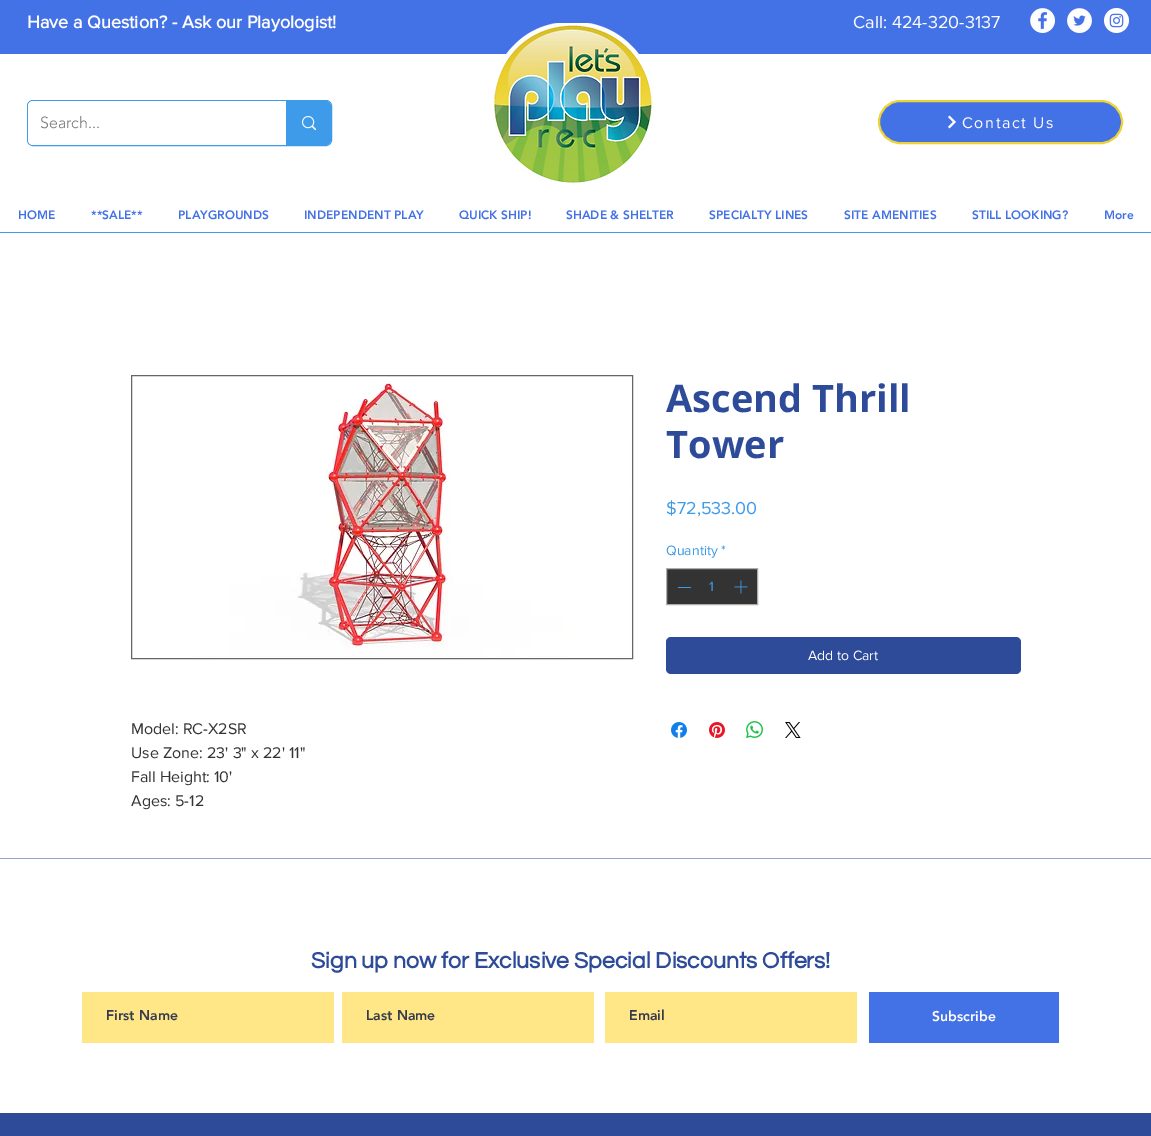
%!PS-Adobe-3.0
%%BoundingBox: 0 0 1151 1136
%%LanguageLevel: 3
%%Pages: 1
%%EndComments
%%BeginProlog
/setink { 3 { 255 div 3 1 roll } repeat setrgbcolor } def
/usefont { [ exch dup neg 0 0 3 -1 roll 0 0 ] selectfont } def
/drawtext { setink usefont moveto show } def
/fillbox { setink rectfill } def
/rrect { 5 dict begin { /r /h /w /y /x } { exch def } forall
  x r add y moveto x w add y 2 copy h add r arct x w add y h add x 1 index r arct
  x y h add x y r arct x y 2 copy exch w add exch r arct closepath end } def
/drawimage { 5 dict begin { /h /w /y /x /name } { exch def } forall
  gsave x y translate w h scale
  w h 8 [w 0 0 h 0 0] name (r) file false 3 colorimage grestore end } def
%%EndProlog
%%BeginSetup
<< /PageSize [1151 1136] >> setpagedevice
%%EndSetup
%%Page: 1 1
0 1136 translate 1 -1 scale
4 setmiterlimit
0 0 1151 1136 255 255 255 fillbox
0 0 1151 54 67 113 230 fillbox
(Have a Question? - Ask our Playologist!) 27 28 /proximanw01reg-Bold 18 255 254 254 drawtext
(Call: 424-320-3137) 853 28 /proximanw01reg-Regular 18 255 254 254 drawtext
(assets/img1.rgb) 1030 8 25 25 drawimage
(assets/img2.rgb) 1067 8 25 25 drawimage
(assets/img3.rgb) 1104 8 25 25 drawimage
61 155 233 setink
27.5 100.5 304 45 5.5 rrect stroke
255 255 255 setink
28 101 303 44 5 rrect fill
(Search...) 40 128 /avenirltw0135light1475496-Light 16 120 120 120 drawtext
61 155 233 setink
286 101 moveto 326 101 lineto 329 101 331 103 331 106 curveto 331 140 lineto 331 143 329 145 326 145 curveto 286 145 lineto closepath fill
(assets/img4.rgb) 302 116 14 14 drawimage
(assets/img5.rgb) 494 23 160 160 drawimage
67 113 230 setink
879 101 243 42 21 rrect gsave fill grestore
237 211 55 setink
2 setlinewidth
stroke
(assets/img6.rgb) 948 115 8 14 drawimage
/proximanw01reg-Regular 16 usefont
255 254 254 setink
962 128 moveto 1.6 0 (Contact Us) ashow
(HOME) 18 219 /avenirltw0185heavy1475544-Black 12 67 113 230 drawtext
(**SALE**) 91 219 /avenirltw0185heavy1475544-Black 12 67 113 230 drawtext
(PLAYGROUNDS) 178 219 /avenirltw0185heavy1475544-Black 12 67 113 230 drawtext
(INDEPENDENT PLAY) 304 219 /avenirltw0185heavy1475544-Black 12 67 113 230 drawtext
(QUICK SHIP!) 459 219 /avenirltw0185heavy1475544-Black 12 67 113 230 drawtext
(SHADE & SHELTER) 566 219 /avenirltw0185heavy1475544-Black 12 67 113 230 drawtext
(SPECIALTY LINES) 709 219 /avenirltw0185heavy1475544-Black 12 67 113 230 drawtext
(SITE AMENITIES) 844 219 /avenirltw0185heavy1475544-Black 12 67 113 230 drawtext
(STILL LOOKING?) 972 219 /avenirltw0185heavy1475544-Black 12 67 113 230 drawtext
(More) 1104 219 /avenirltw0185heavy1475544-Black 12 67 113 230 drawtext
0 232 1151 1 61 155 233 fillbox
(Ascend Thrill) 666 412 /OpenSans-Bold 38 45 75 153 drawtext
(Tower) 666 458 /OpenSans-Bold 38 45 75 153 drawtext
($72,533.00) 666 514 /proximanw01reg-Regular 18 61 155 233 drawtext
(Quantity) 666 555 /proximanw01reg-Regular 14 61 155 233 drawtext
(*) 721 555 /proximanw01reg-Regular 14 61 155 233 drawtext
51 51 51 setink
666.5 568.5 moveto 757.5 568.5 lineto 757.5 604.5 lineto 666.5 604.5 lineto closepath gsave fill grestore
173 173 173 setink
1 setlinewidth
stroke
678 587 13 1 61 155 233 fillbox
(1) 709 591 /proximanw01reg-Regular 14 61 155 233 drawtext
(assets/img7.rgb) 734 580 14 14 drawimage
45 75 153 setink
666 637 355 37 5 rrect fill
(Add to Cart) 808 660 /proximanw01reg-Regular 14 255 254 254 drawtext
(assets/img8.rgb) 671 722 16 16 drawimage
(assets/img9.rgb) 709 722 16 16 drawimage
(assets/img10.rgb) 746 721 17 17 drawimage
(assets/img11.rgb) 785 722 16 16 drawimage
102 102 102 setink
131.5 375.5 501 283 rectstroke
(assets/img12.rgb) 192 381 440 276 drawimage
(Model: RC-X2SR) 131 734 /proximanw01reg-Regular 16 51 51 51 drawtext
(Use Zone: 23' 3" x 22' 11") 131 758 /proximanw01reg-Regular 16 51 51 51 drawtext
(Fall Height: 10') 131 782 /proximanw01reg-Regular 16 51 51 51 drawtext
(Ages: 5-12) 131 806 /proximanw01reg-Regular 16 51 51 51 drawtext
0 858 1151 1 150 165 204 fillbox
(Sign up now for Exclusive Special Discounts Offers!) 311 968 /Questrial-Bold 23 45 75 153 drawtext
82 992 252 51 255 230 135 fillbox
(First Name) 106 1020 /avenirltw0185heavy1475544-Black 14 55 59 77 drawtext
342 992 252 51 255 230 135 fillbox
(Last Name) 366 1020 /avenirltw0185heavy1475544-Black 14 55 59 77 drawtext
605 992 252 51 255 230 135 fillbox
(Email) 629 1020 /avenirltw0185heavy1475544-Black 14 55 59 77 drawtext
869 992 190 51 67 113 230 fillbox
(Subscribe) 932 1021 /avenirltw0185heavy1475544-Black 14 255 254 254 drawtext
0 1113 1151 23 45 75 153 fillbox
showpage
%%EOF
